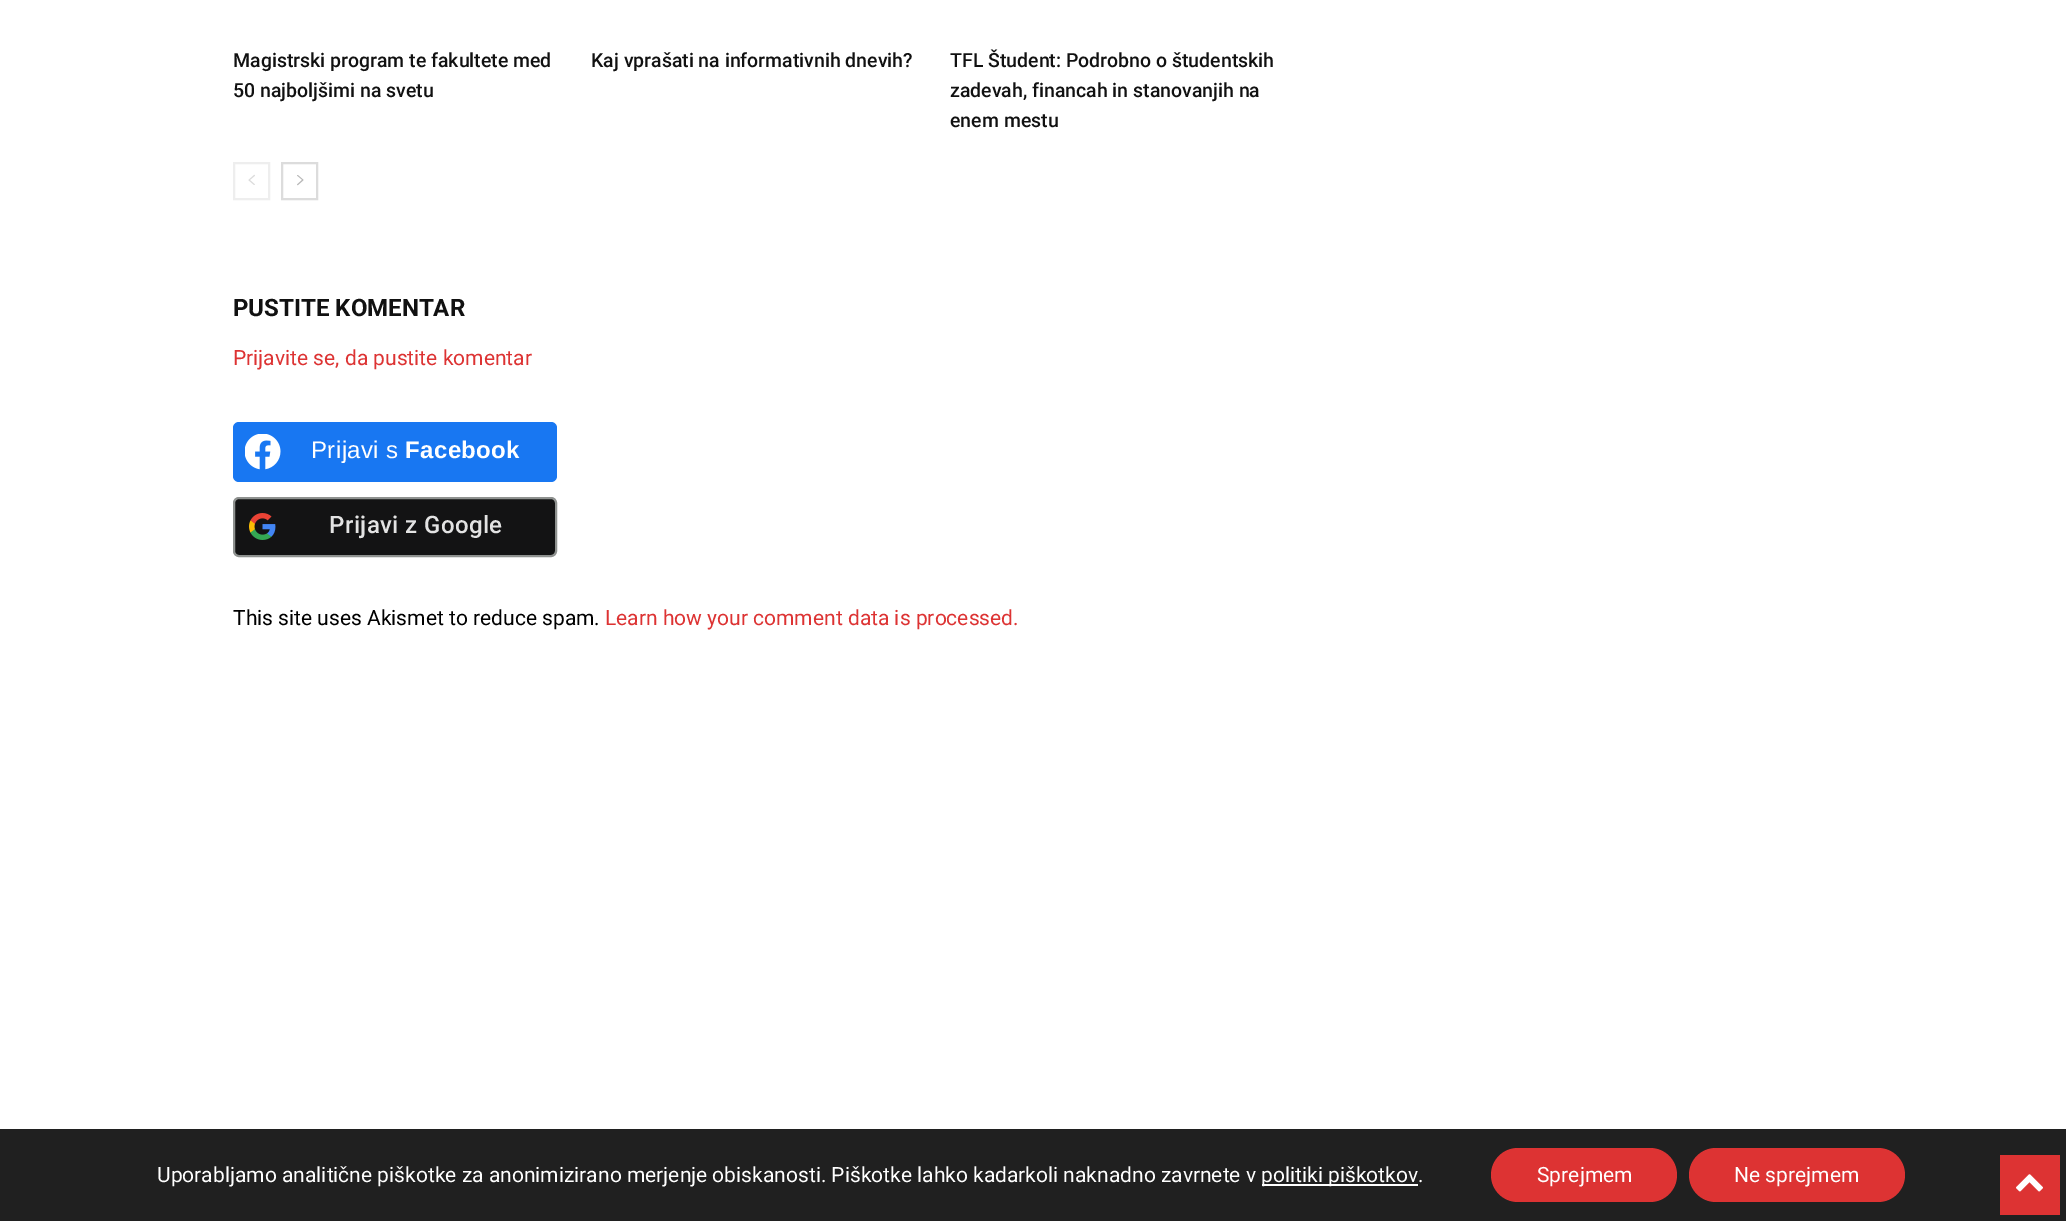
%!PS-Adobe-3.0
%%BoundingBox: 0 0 2066 1221
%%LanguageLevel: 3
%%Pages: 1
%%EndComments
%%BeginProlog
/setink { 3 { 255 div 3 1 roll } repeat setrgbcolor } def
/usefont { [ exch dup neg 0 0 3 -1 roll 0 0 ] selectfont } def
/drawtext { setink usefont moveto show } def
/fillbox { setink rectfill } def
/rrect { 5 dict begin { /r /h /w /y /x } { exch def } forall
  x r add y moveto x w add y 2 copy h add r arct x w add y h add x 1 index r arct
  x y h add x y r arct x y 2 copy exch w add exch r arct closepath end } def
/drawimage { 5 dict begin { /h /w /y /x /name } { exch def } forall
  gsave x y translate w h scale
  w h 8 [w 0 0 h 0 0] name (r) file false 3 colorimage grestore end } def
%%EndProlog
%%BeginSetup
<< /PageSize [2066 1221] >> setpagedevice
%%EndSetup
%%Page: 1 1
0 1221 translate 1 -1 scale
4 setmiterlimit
0 0 2066 1221 255 255 255 fillbox
(Magistrski program te fakultete med) 233 67 /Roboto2-Medium 19.5 17 17 17 drawtext
(50 najboljšimi na svetu) 233 97 /Roboto2-Medium 19.5 17 17 17 drawtext
(Kaj vprašati na informativnih dnevih?) 591 67 /Roboto2-Medium 19.5 17 17 17 drawtext
(TFL Študent: Podrobno o študentskih) 950 67 /Roboto2-Medium 19.5 17 17 17 drawtext
(zadevah, financah in stanovanjih na) 950 97 /Roboto2-Medium 19.5 17 17 17 drawtext
(enem mestu) 950 127 /Roboto2-Medium 19.5 17 17 17 drawtext
238 238 238 setink
2 setlinewidth
234 163 35 36 rectstroke
(assets/img1.rgb) 248 174 7 11 drawimage
220 220 220 setink
282 163 35 36 rectstroke
(assets/img2.rgb) 297 175 7 11 drawimage
(PUSTITE KOMENTAR) 233 316 /Roboto-Bold 24 17 17 17 drawtext
(Prijavite se, da pustite komentar) 233 365 /Roboto-Regular 21 221 51 51 drawtext
24 119 242 setink
233 422 324 60 6 rrect fill
(assets/img3.rgb) 245 434 36 36 drawimage
/LiberationSans-Regular 24 usefont
255 255 255 setink
311 458 moveto 0.4 0 (Prijavi s) ashow
/LiberationSans-Bold 24 usefont
405 458 moveto 0.4 0 (Facebook) ashow
19 19 20 setink
234 498 322 58 5 rrect gsave fill grestore
142 145 143 setink
stroke
(assets/img4.rgb) 249 513 27 27 drawimage
/Roboto-Medium 24 usefont
227 227 227 setink
329 533 moveto 0.4 0 (Prijavi z Google) ashow
(This site uses Akismet to reduce spam.) 233 625 /Roboto-Regular 21 0 0 0 drawtext
(Learn how your comment data is processed.) 605 625 /Roboto-Regular 21 221 51 51 drawtext
0 1129 2066 92 32 32 32 fillbox
(Uporabljamo analitične piškotke za anonimizirano merjenje obiskanosti. Piškotke lahko kadarkoli naknadno zavrnete v) 157 1182 /Roboto-Regular 21 255 255 255 drawtext
1262 1184 156 2 255 255 255 fillbox
(politiki piškotkov.) 1261 1182 /Roboto-Regular 21 255 255 255 drawtext
221 51 51 setink
1491 1148 186 54 27 rrect fill
(Sprejmem) 1537 1182 /Roboto-Regular 21 255 255 255 drawtext
221 51 51 setink
1689 1148 216 54 27 rrect fill
(Ne sprejmem) 1734 1182 /Roboto-Regular 21 255 255 255 drawtext
2000 1155 60 60 221 51 51 fillbox
(assets/img5.rgb) 2016 1174 27 18 drawimage
showpage
%%EOF
